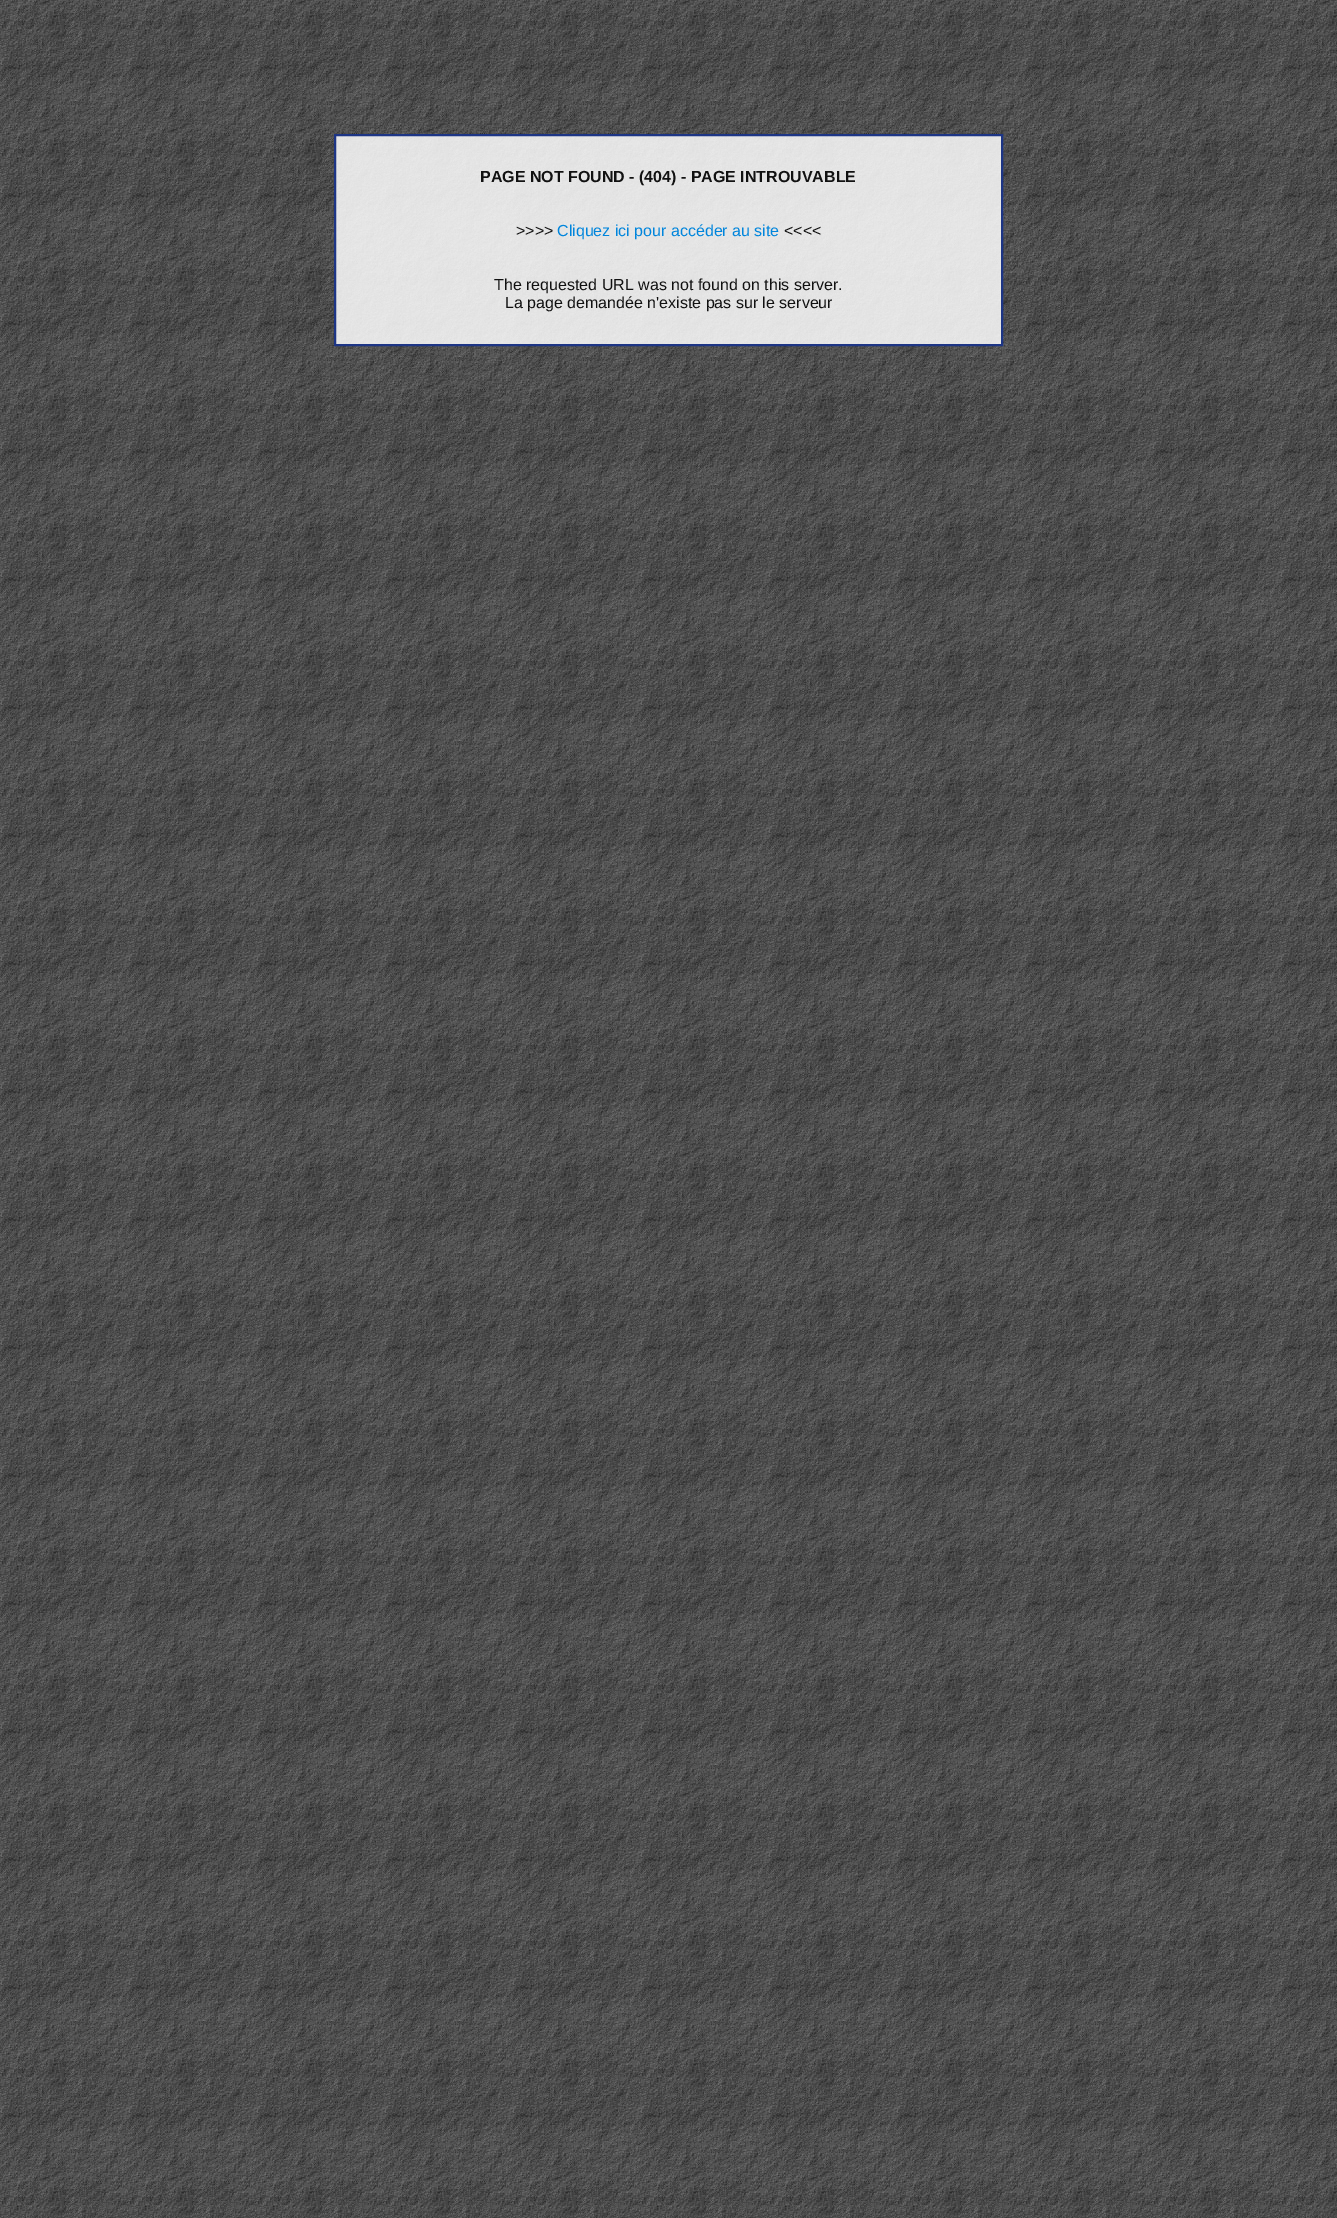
%!PS-Adobe-3.0
%%BoundingBox: 0 0 1337 2218
%%LanguageLevel: 3
%%Pages: 1
%%EndComments
%%BeginProlog
/setink { 3 { 255 div 3 1 roll } repeat setrgbcolor } def
/usefont { [ exch dup neg 0 0 3 -1 roll 0 0 ] selectfont } def
/drawtext { setink usefont moveto show } def
/fillbox { setink rectfill } def
/setalpha { dup .setfillconstantalpha .setstrokeconstantalpha } def
/drawimage { 5 dict begin { /h /w /y /x /name } { exch def } forall
  gsave x y translate w h scale
  w h 8 [w 0 0 h 0 0] name (r) file false 3 colorimage grestore end } def
%%EndProlog
%%BeginSetup
<< /PageSize [1337 2218] /PageUsesTransparency true >> setpagedevice
%%EndSetup
%%Page: 1 1
0 .pushpdf14devicefilter
0 2218 translate 1 -1 scale
4 setmiterlimit
0 0 1337 2218 255 255 255 fillbox
(assets/img1.rgb) 0 0 1337 2218 drawimage
0.85 setalpha
335 135 moveto 1002 135 lineto 1002 345 lineto 335 345 lineto closepath fill
1 setalpha
29 53 133 setink
2 setlinewidth
335 135 moveto 1002 135 lineto 1002 345 lineto 335 345 lineto closepath stroke
(PAGE NOT FOUND - \(404\) - PAGE INTROUVABLE) 480 182 /LiberationSans-Bold 16 17 17 17 drawtext
(>>>>) 516 236 /LiberationSans-Regular 16 17 17 17 drawtext
(Cliquez ici pour accéder au site) 557 236 /LiberationSans-Regular 16 0 133 220 drawtext
(<<<<) 784 236 /LiberationSans-Regular 16 17 17 17 drawtext
(The requested URL was not found on this server.) 494 290 /LiberationSans-Regular 16 17 17 17 drawtext
(La page demandée n'existe pas sur le serveur) 505 308 /LiberationSans-Regular 16 17 17 17 drawtext
.poppdf14devicefilter showpage
%%EOF
